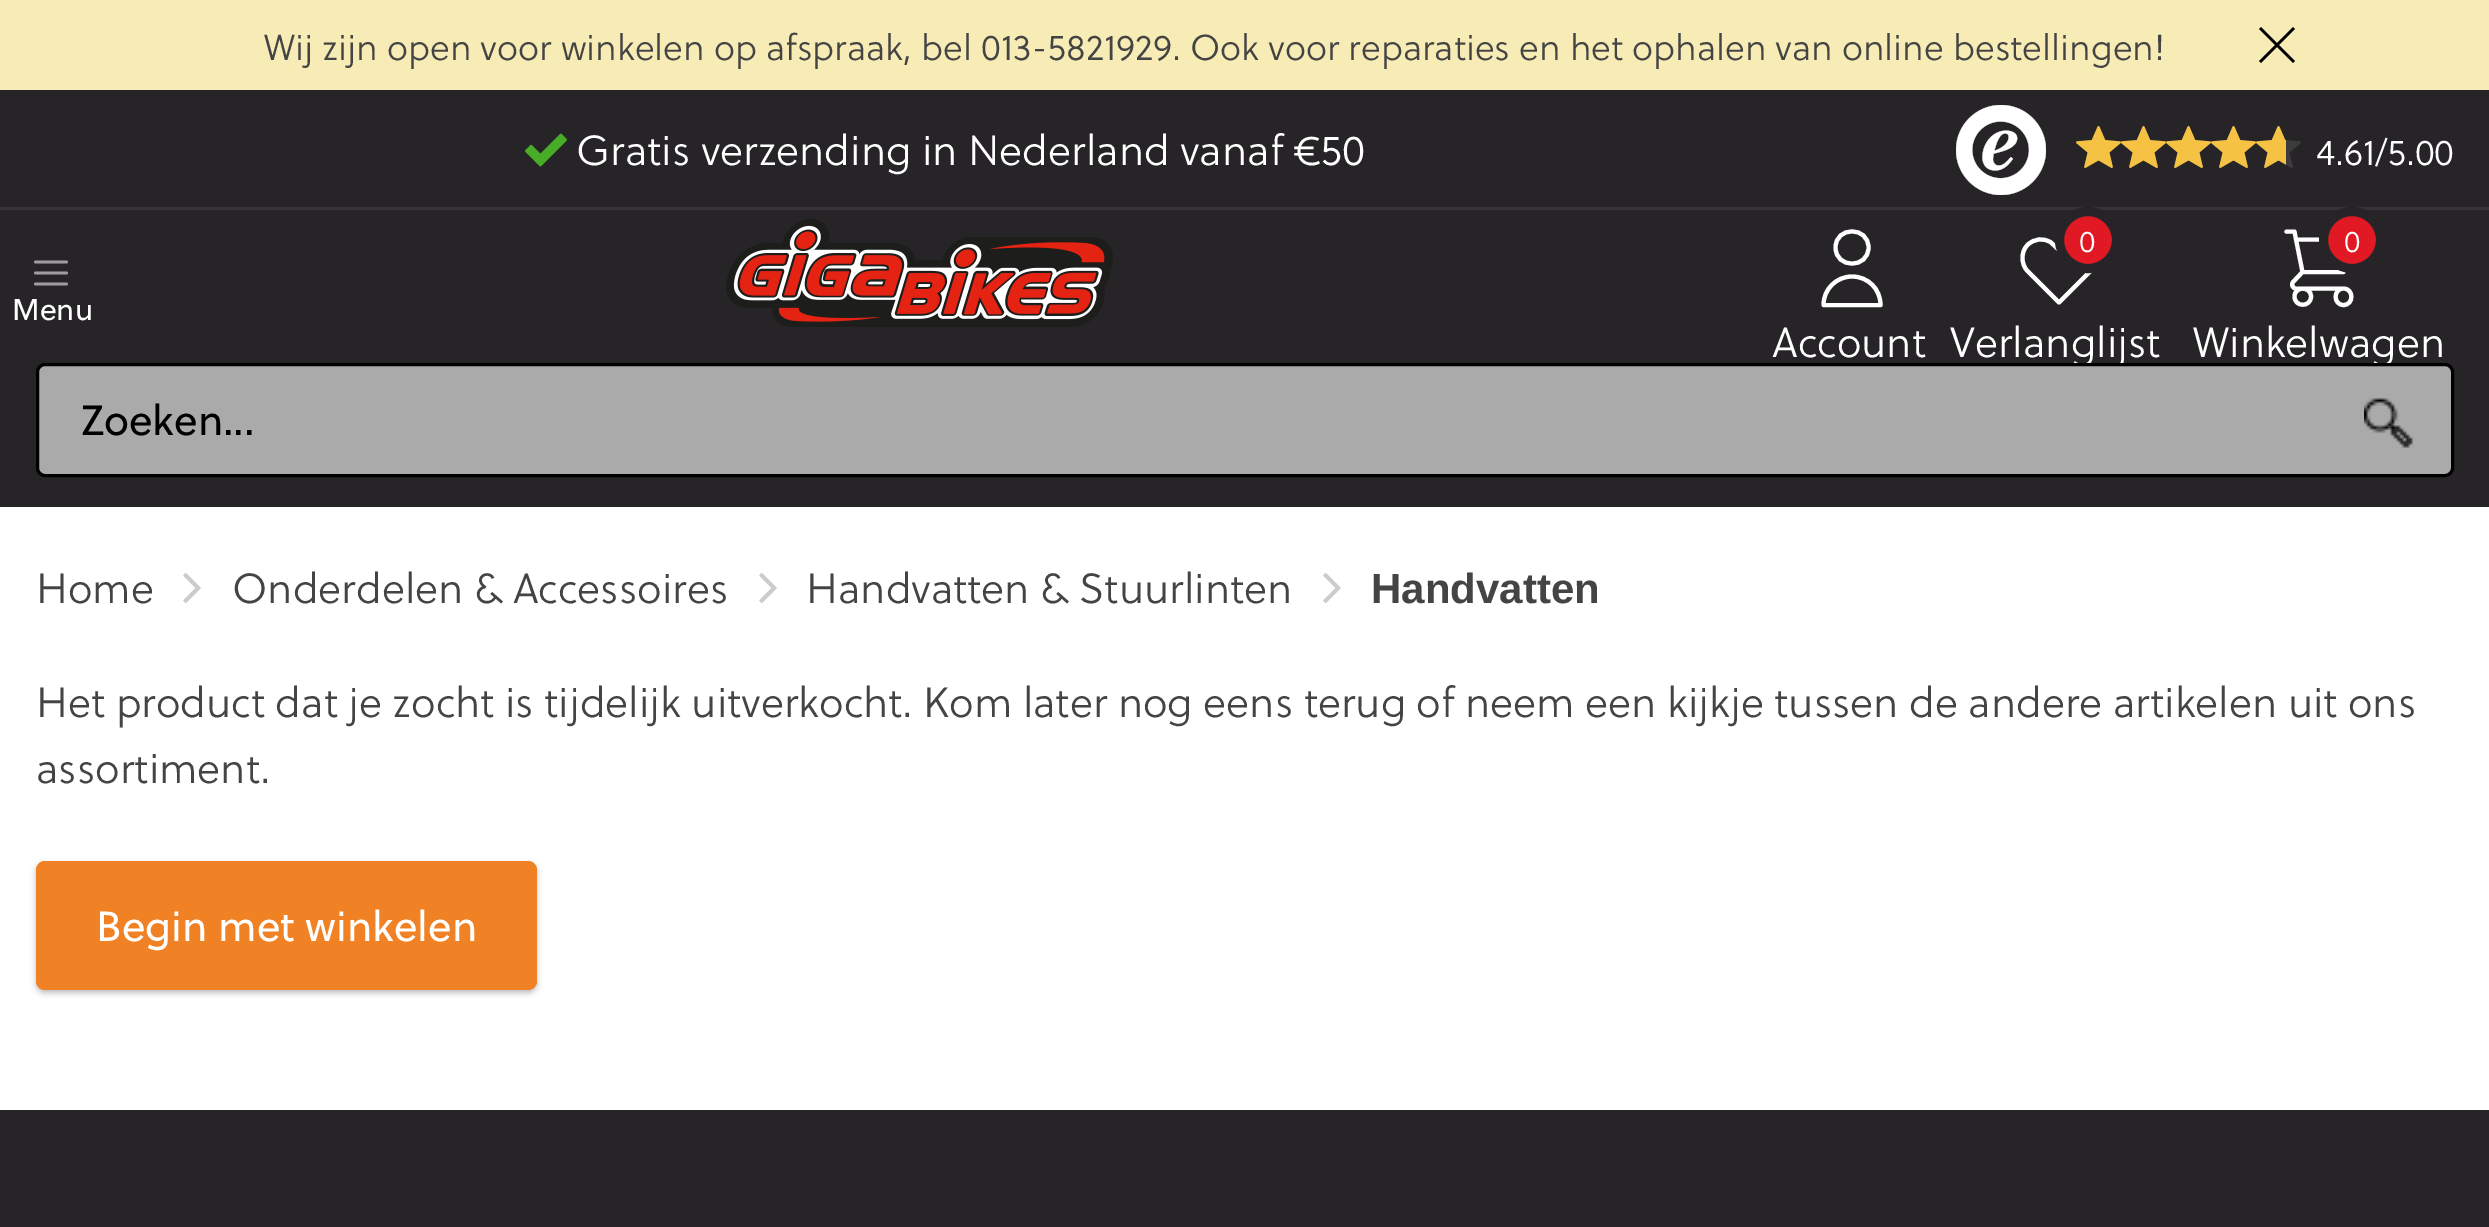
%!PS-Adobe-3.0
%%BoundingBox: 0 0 2489 1227
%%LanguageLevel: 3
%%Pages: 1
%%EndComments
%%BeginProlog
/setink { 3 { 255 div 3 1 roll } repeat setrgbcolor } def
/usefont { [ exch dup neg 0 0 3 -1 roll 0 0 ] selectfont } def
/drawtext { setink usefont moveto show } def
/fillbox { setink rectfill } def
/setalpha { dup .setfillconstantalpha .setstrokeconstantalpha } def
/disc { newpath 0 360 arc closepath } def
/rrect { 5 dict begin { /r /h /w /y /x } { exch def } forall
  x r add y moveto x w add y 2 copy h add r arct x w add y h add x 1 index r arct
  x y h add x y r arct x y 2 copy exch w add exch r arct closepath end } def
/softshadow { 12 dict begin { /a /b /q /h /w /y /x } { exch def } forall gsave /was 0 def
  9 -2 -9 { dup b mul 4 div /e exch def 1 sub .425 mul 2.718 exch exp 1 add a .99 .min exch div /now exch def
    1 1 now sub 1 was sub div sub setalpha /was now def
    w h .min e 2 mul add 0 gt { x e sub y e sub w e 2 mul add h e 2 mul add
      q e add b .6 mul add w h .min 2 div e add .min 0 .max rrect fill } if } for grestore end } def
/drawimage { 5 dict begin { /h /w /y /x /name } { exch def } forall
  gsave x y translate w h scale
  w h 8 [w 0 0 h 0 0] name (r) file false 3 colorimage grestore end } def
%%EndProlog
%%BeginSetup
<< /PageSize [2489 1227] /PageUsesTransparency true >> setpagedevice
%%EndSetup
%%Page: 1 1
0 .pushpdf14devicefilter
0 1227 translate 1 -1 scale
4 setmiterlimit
0 0 2489 1227 255 255 255 fillbox
0 0 2489 90 247 236 181 fillbox
(Wij zijn open voor winkelen op afspraak, bel 013-5821929. Ook voor reparaties en het ophalen van online bestellingen!) 264 60 /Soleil-Light 36 68 68 68 drawtext
0 0 0 setink
2295 29 moveto 2293 27 lineto 2277 43 lineto 2261 27 lineto 2259 29 lineto 2275 45 lineto 2259 61 lineto 2261 63 lineto 2277 47 lineto 2293 63 lineto 2295 61 lineto 2279 45 lineto closepath fill
0 90 2489 117 39 36 40 fillbox
0 207 2489 3 52 52 52 fillbox
(assets/img1.rgb) 525 133 42 34 drawimage
(Gratis verzending in Nederland vanaf €50) 576 165 /Soleil-Light 42 255 255 255 drawtext
(assets/img2.rgb) 1956 105 90 90 drawimage
(assets/img3.rgb) 2076 126 225 42 drawimage
(assets/img4.rgb) 2076 126 210 42 drawimage
(4.61/5.00) 2316 165 /Soleil-Light 36 255 255 255 drawtext
0 210 2489 297 39 36 40 fillbox
158 156 158 setink
2.8 setlinewidth
1 setlinecap
35.5 262 moveto 66.5 262 lineto 35.5 273 moveto 66.5 273 lineto 35.5 284 moveto 66.5 284 lineto stroke
(Menu) 12 320 /Soleil-Regular 30 255 255 255 drawtext
(assets/img5.rgb) 726 219 387 108 drawimage
4.1 setlinewidth
1 setlinejoin
1868.5 247.5 moveto 1868.5 269 1835.5 269 1835.5 247.5 curveto 1835.5 226 1868.5 226 1868.5 247.5 curveto closepath 1852 276.5 moveto 1836.5 276.5 1823.5 289 1823.5 305 curveto 1880.5 305 lineto 1880.5 289 1868 276.5 1852 276.5 curveto closepath stroke
(Account) 1772 357 /Soleil-Light 42 255 255 255 drawtext
2027.5 245 moveto 2024 248.5 2022.5 253 2022.5 258 curveto 2022.5 262.5 2024 267.5 2027.5 271 curveto 2059 302.5 lineto 2090.5 271 lineto 2097.5 263.5 2097.5 252 2090.5 245 curveto 2083.5 237.5 2071.5 237.5 2064.5 245 curveto 2059 250 lineto 2051 242.5 lineto 2043.5 237.5 2034 238.5 2027.5 245 curveto closepath stroke
225 25 37 setink
2088 240 28.5 disc gsave fill grestore
39 36 40 setink
9 setlinewidth
0 setlinecap
0 setlinejoin
stroke
(0) 2079 252 /Soleil-Light 30 255 255 255 drawtext
(Verlanglijst) 1950 357 /Soleil-Light 42 255 255 255 drawtext
4.1 setlinewidth
1 setlinecap
1 setlinejoin
2286.5 231.5 moveto 2294.5 231.5 lineto 2296 239.5 lineto 2302.5 272 moveto 2343.5 272 lineto 2360 239.5 lineto 2296 239.5 lineto 2302.5 272 moveto 2296 239.5 lineto 2302.5 272 moveto 2293.5 281.5 lineto 2290.5 284 2292.5 288.5 2296 288.5 curveto 2343.5 288.5 lineto 2343.5 288.5 moveto 2333 288.5 2333 305 2343.5 305 curveto 2354 305 2354 288.5 2343.5 288.5 curveto closepath 2311 296.5 moveto 2311 307.5 2294.5 307.5 2294.5 296.5 curveto 2294.5 286 2311 286 2311 296.5 curveto closepath stroke
225 25 37 setink
2352 240 28.5 disc gsave fill grestore
39 36 40 setink
9 setlinewidth
0 setlinecap
0 setlinejoin
stroke
(0) 2344 252 /Soleil-Light 30 255 255 255 drawtext
(Winkelwagen) 2193 357 /Soleil-Light 42 255 255 255 drawtext
170 170 170 setink
37.5 364.5 2415 111 7.5 rrect gsave fill grestore
0 0 0 setink
3 setlinewidth
stroke
(Zoeken...) 81 435 /Soleil-Regular 42 0 0 0 drawtext
(assets/img6.rgb) 2364 398 49 50 drawimage
(Home) 36 603 /Soleil-Light 42 68 68 68 drawtext
(assets/img7.rgb) 183 573 18 30 drawimage
(Onderdelen & Accessoires) 232 603 /Soleil-Light 42 68 68 68 drawtext
(assets/img8.rgb) 759 573 18 30 drawimage
(Handvatten & Stuurlinten) 806 603 /Soleil-Light 42 68 68 68 drawtext
(assets/img7.rgb) 1323 573 18 30 drawimage
(Handvatten) 1371 603 /LiberationSans-Bold 42 68 68 68 drawtext
(Het product dat je zocht is tijdelijk uitverkocht. Kom later nog eens terug of neem een kijkje tussen de andere artikelen uit ons) 36 717 /Soleil-Light 42 68 68 68 drawtext
(assortiment.) 36 783 /Soleil-Light 42 68 68 68 drawtext
0 0 0 setink
36 864 501 129 9 3 0.25 softshadow
240 129 37 setink
36 861 501 129 9 rrect fill
(Begin met winkelen) 96 941 /Soleil-Regular 42 255 255 255 drawtext
0 1110 2489 117 39 36 40 fillbox
.poppdf14devicefilter showpage
%%EOF
